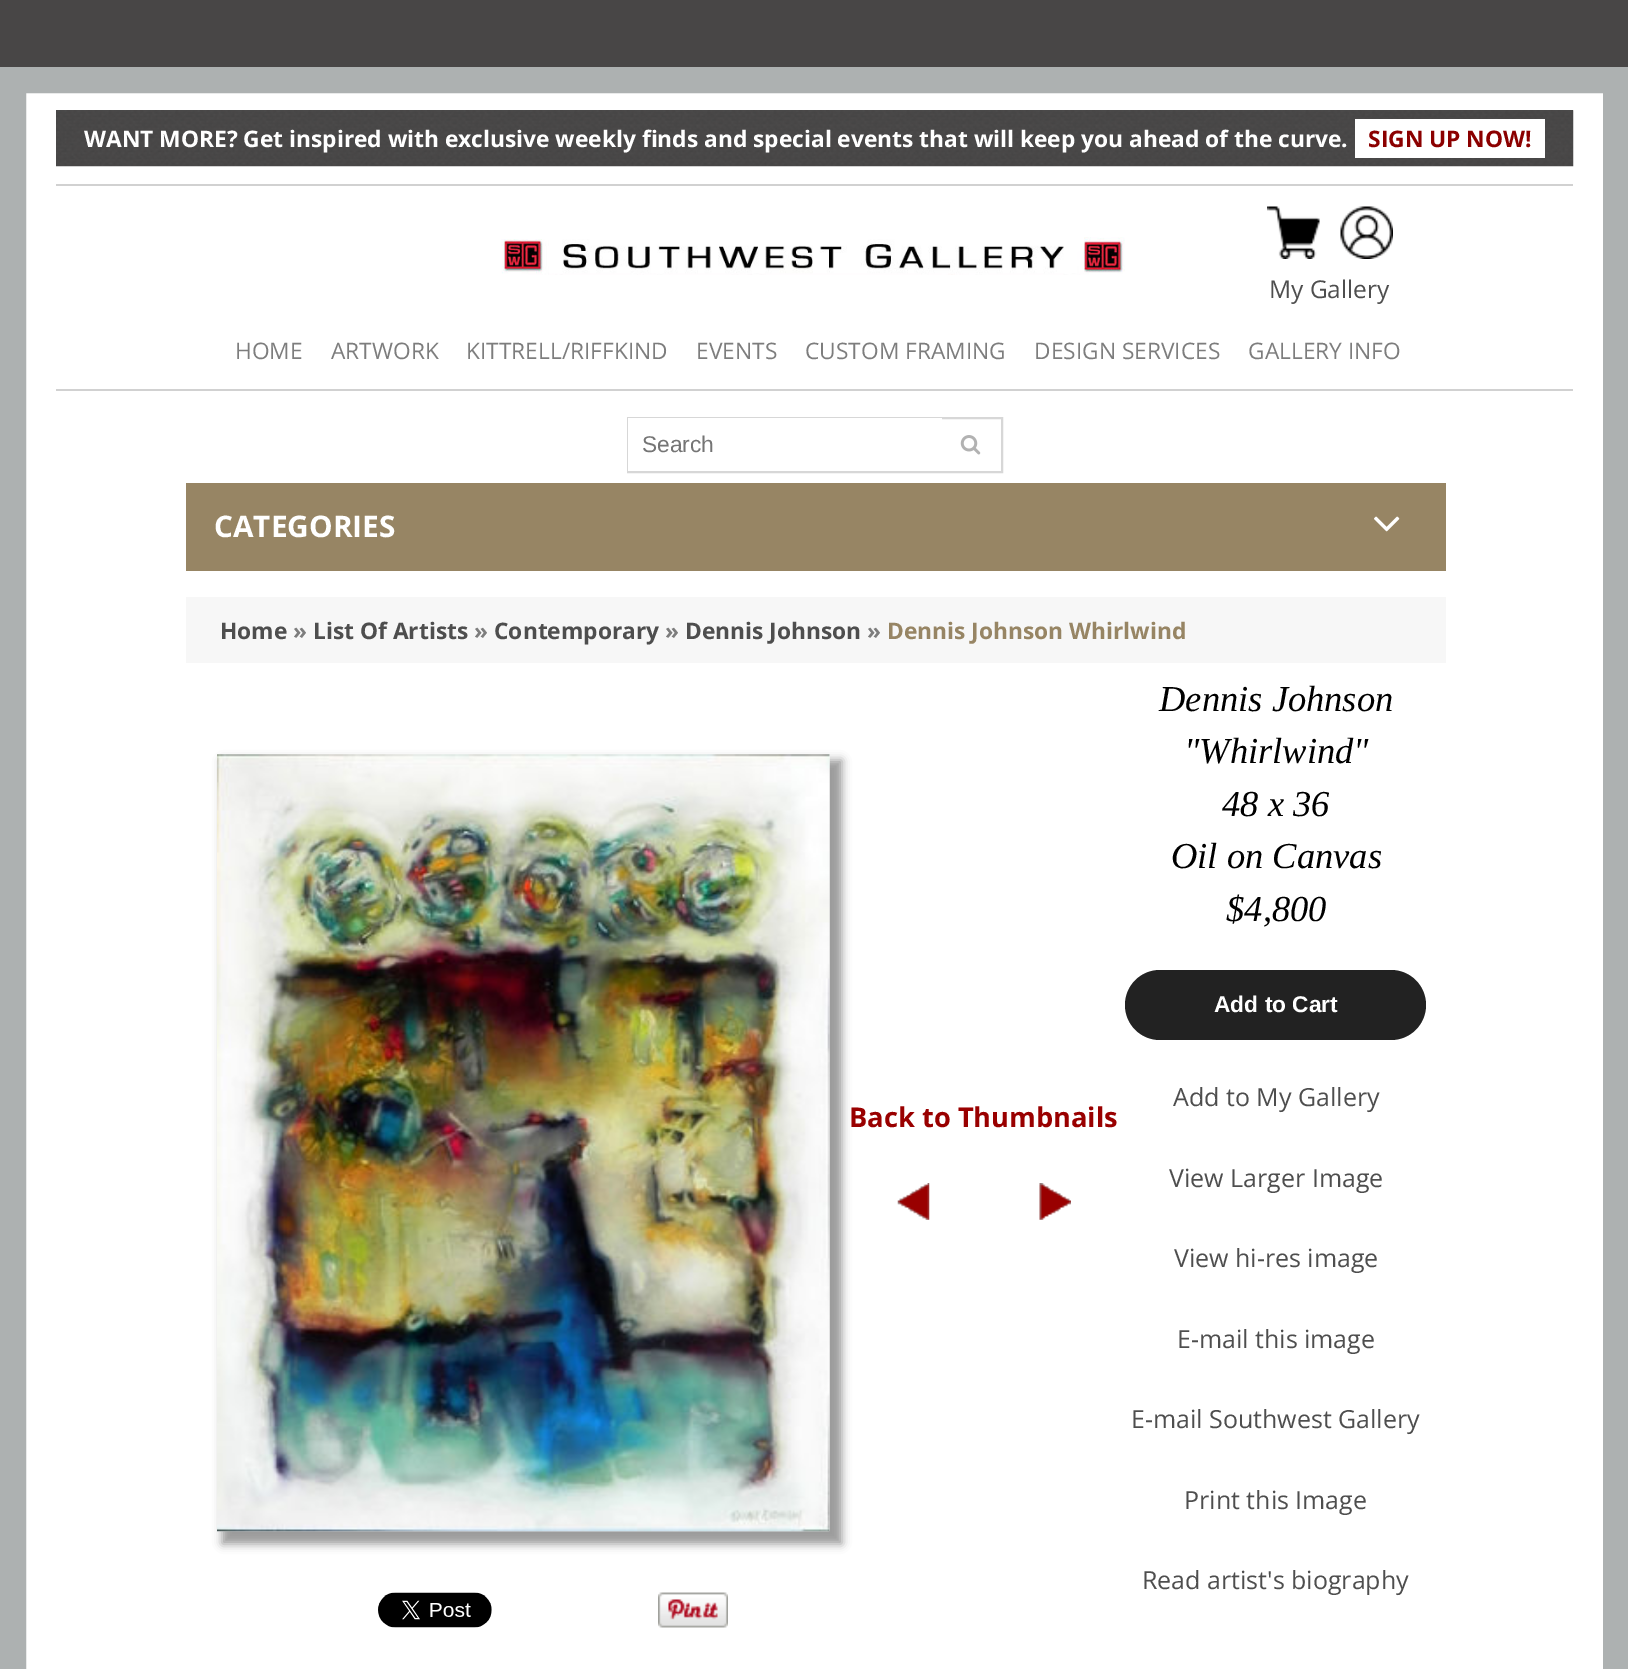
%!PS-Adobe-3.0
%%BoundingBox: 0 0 1628 1669
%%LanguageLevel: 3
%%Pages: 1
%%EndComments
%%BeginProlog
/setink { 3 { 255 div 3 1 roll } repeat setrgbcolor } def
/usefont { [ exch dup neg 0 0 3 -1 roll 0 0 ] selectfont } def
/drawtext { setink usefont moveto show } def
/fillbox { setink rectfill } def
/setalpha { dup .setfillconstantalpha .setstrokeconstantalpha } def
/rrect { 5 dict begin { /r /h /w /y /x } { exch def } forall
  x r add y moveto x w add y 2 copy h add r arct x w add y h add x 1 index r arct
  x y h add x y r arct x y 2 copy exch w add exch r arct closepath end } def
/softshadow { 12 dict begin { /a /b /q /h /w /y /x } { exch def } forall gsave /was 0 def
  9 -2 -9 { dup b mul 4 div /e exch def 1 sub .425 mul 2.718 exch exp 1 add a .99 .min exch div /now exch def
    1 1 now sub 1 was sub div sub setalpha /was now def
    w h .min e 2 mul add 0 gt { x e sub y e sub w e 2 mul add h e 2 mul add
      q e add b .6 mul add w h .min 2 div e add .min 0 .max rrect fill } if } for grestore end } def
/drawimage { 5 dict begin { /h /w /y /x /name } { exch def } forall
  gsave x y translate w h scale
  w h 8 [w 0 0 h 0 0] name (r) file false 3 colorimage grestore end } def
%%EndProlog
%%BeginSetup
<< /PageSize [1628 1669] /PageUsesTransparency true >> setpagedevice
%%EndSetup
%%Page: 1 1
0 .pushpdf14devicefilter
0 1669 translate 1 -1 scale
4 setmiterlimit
0 0 1628 1669 72 70 70 fillbox
255 255 255 setink
13 80 moveto 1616 80 lineto 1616 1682 lineto 13 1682 lineto closepath gsave fill grestore
173 177 177 setink
26 setlinewidth
stroke
(assets/img1.rgb) 56 110 1518 57 drawimage
(WANT MORE? Get inspired with exclusive weekly finds and special events that will keep you ahead of the curve.) 84 147 /OpenSans-Bold 22.75 255 255 255 drawtext
1355 119 190 39 255 255 255 fillbox
(SIGN UP NOW!) 1368 147 /OpenSans-Bold 22.75 139 0 0 drawtext
56 184 1517 2 209 209 209 fillbox
56 389 1517 2 209 209 209 fillbox
(assets/img2.rgb) 501 237 624 38 drawimage
(assets/img3.rgb) 1267 206 53 53 drawimage
(assets/img4.rgb) 1340 206 53 53 drawimage
(My Gallery) 1269 298 /OpenSans-Regular 24.5 78 78 78 drawtext
(HOME) 235 359 /OpenSans-Regular 22.75 125 125 125 drawtext
(ARTWORK) 331 359 /OpenSans-Regular 22.75 125 125 125 drawtext
(KITTRELL/RIFFKIND) 466 359 /OpenSans-Regular 22.75 125 125 125 drawtext
(EVENTS) 696 359 /OpenSans-Regular 22.75 125 125 125 drawtext
(CUSTOM FRAMING) 805 359 /OpenSans-Regular 22.75 125 125 125 drawtext
(DESIGN SERVICES) 1034 359 /OpenSans-Regular 22.75 125 125 125 drawtext
(GALLERY INFO) 1248 359 /OpenSans-Regular 22.75 125 125 125 drawtext
215 215 215 setink
2 setlinewidth
628 418 374 54 rectstroke
628 418 314 53 255 255 255 fillbox
(Search) 642 452 /LiberationSans-Regular 22.75 117 117 117 drawtext
(assets/img5.rgb) 960 435 21 20 drawimage
186 483 1260 88 151 133 100 fillbox
(CATEGORIES) 214 537 /OpenSans-Bold 29.75 255 255 255 drawtext
(assets/img6.rgb) 1374 516 26 16 drawimage
186 597 1260 66 247 247 247 fillbox
(Home) 220 639 /OpenSans-Bold 22.75 78 78 78 drawtext
(») 293 639 /OpenSans-Bold 22.75 125 125 125 drawtext
(List Of Artists) 313 639 /OpenSans-Bold 22.75 78 78 78 drawtext
(») 474 639 /OpenSans-Bold 22.75 125 125 125 drawtext
(Contemporary) 494 639 /OpenSans-Bold 22.75 78 78 78 drawtext
(») 665 639 /OpenSans-Bold 22.75 125 125 125 drawtext
(Dennis Johnson) 685 639 /OpenSans-Bold 22.75 78 78 78 drawtext
(») 867 639 /OpenSans-Bold 22.75 125 125 125 drawtext
(Dennis Johnson Whirlwind) 887 639 /OpenSans-Bold 22.75 151 133 100 drawtext
153 153 153 setink
222 760 620 784 0 4.5 1 softshadow
(assets/img7.rgb) 217 754 613 778 drawimage
(assets/img8.rgb) 378 1592 114 36 drawimage
(assets/img9.rgb) 658 1592 70 36 drawimage
(Back to Thumbnails) 849 1127 /OpenSans-Bold 27.25 153 0 0 drawtext
(assets/img10.rgb) 897 1183 33 37 drawimage
(assets/img11.rgb) 1039 1183 32 37 drawimage
(Dennis Johnson) 1159 711 /LiberationSerif-Italic 36.5 0 0 0 drawtext
("Whirlwind") 1184 763 /LiberationSerif-Italic 36.5 0 0 0 drawtext
(48 x 36) 1222 816 /LiberationSerif-Italic 36.5 0 0 0 drawtext
(Oil on Canvas) 1171 868 /LiberationSerif-Italic 36.5 0 0 0 drawtext
($4,800) 1226 921 /LiberationSerif-Italic 36.5 0 0 0 drawtext
34 34 34 setink
1125 970 301 70 35 rrect fill
(Add to Cart) 1214 1012 /LiberationSans-Bold 22.75 255 255 255 drawtext
(Add to My Gallery) 1173 1106 /OpenSans-Regular 25 78 78 78 drawtext
(View Larger Image) 1169 1187 /OpenSans-Regular 25 78 78 78 drawtext
(View hi-res image) 1174 1267 /OpenSans-Regular 25 78 78 78 drawtext
(E-mail this image) 1177 1348 /OpenSans-Regular 25 78 78 78 drawtext
(E-mail Southwest Gallery) 1131 1428 /OpenSans-Regular 25 78 78 78 drawtext
(Print this Image) 1184 1509 /OpenSans-Regular 25 78 78 78 drawtext
(Read artist's biography) 1142 1589 /OpenSans-Regular 25 78 78 78 drawtext
.poppdf14devicefilter showpage
%%EOF
